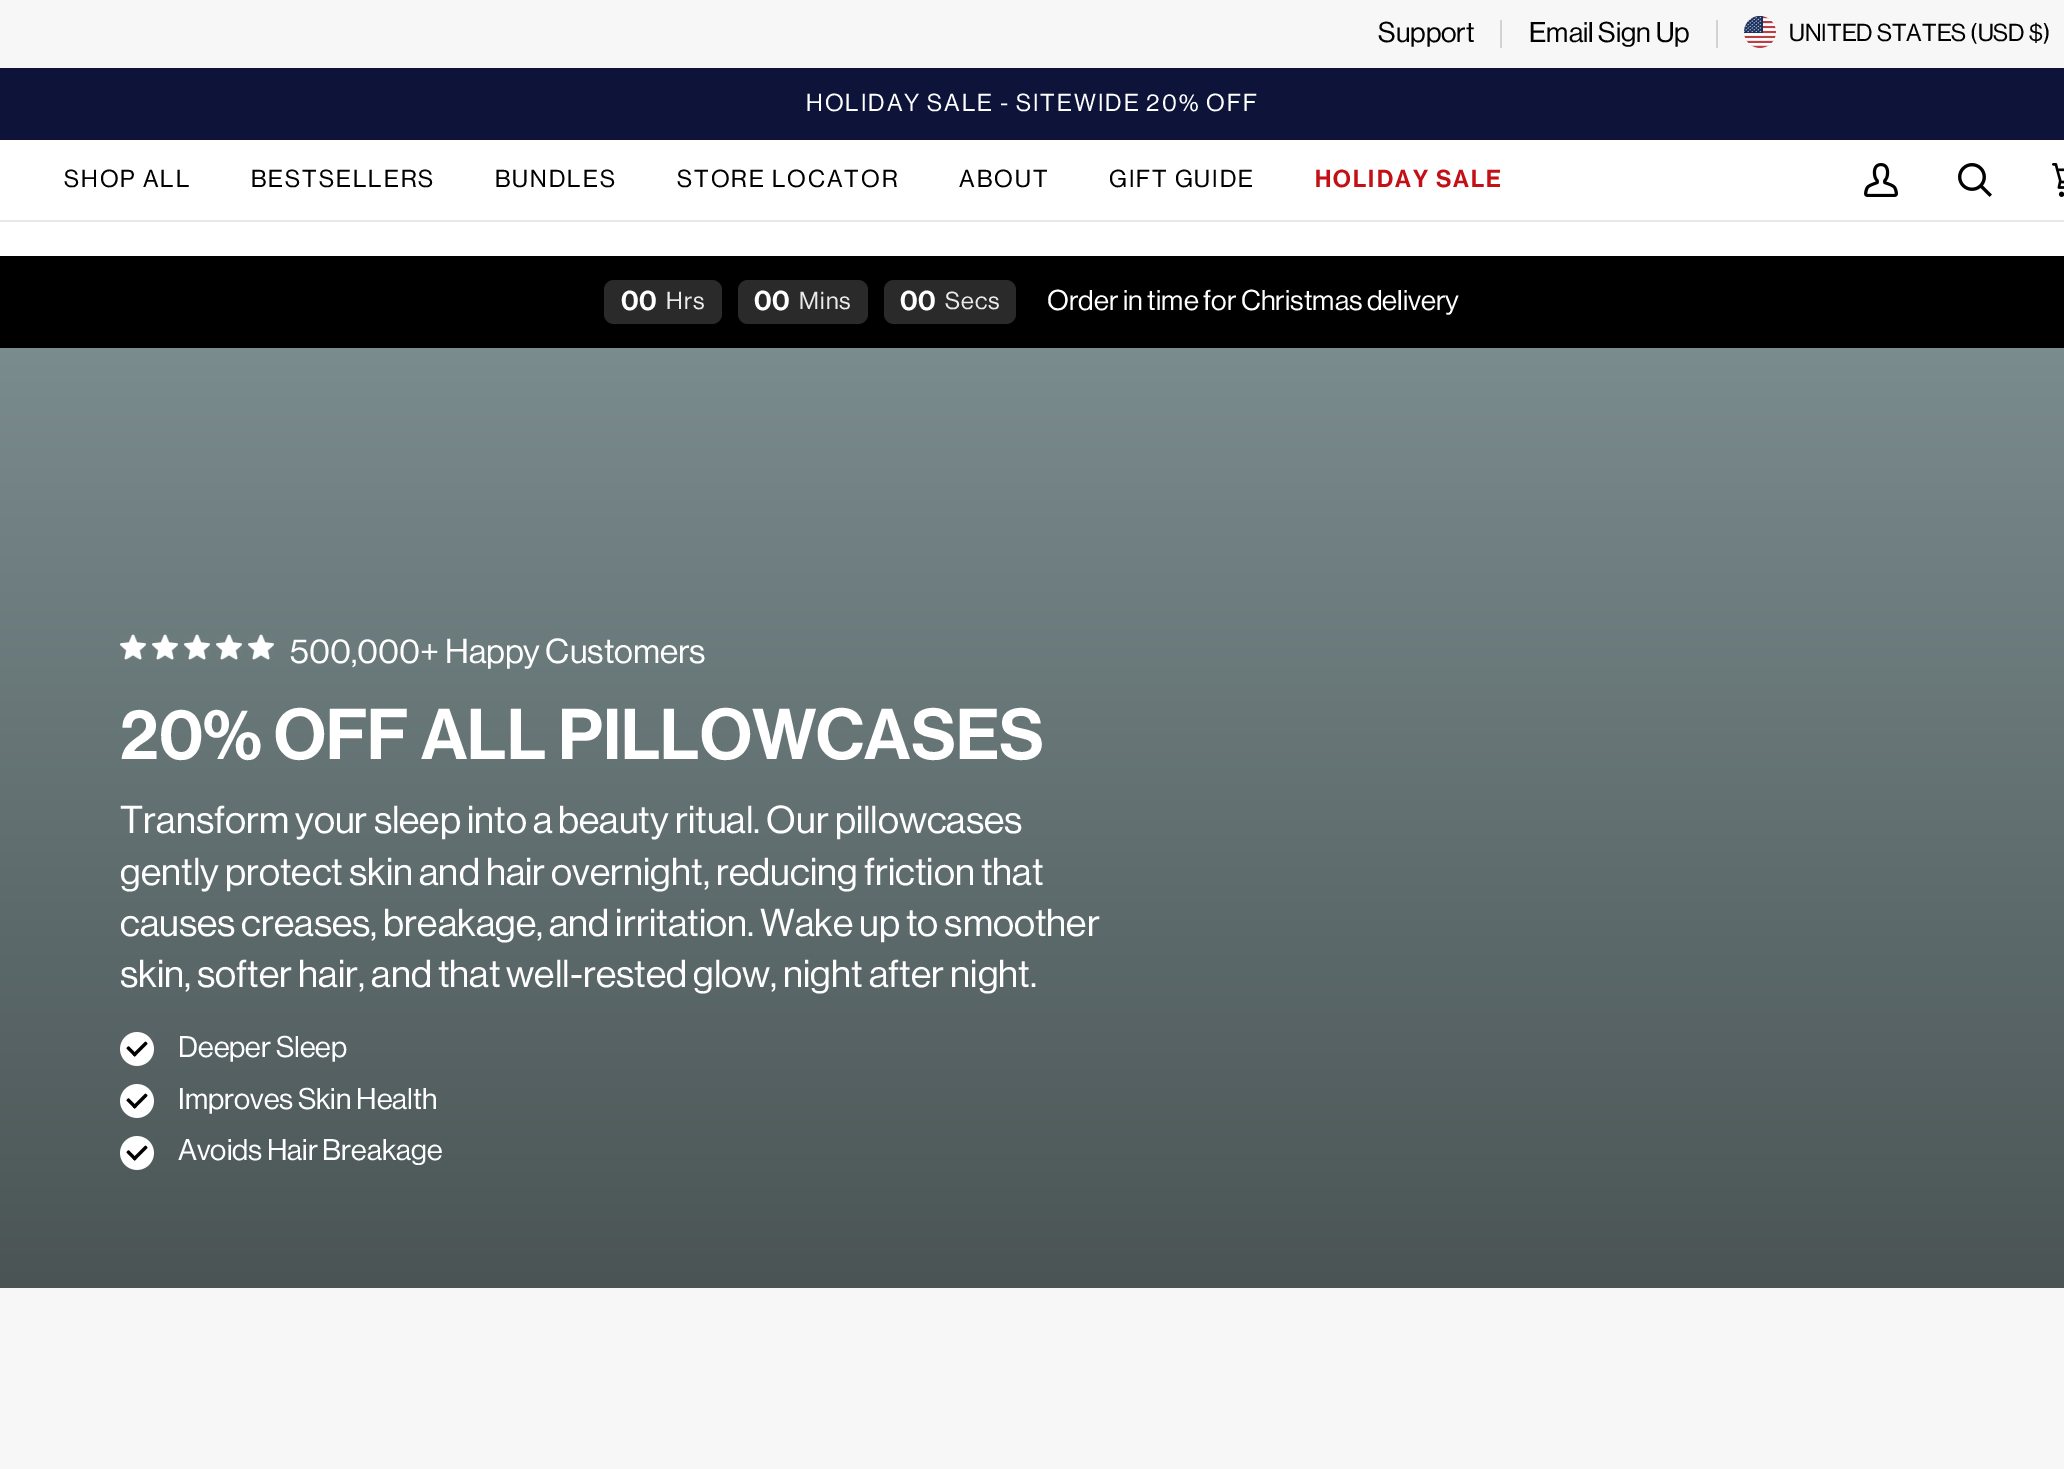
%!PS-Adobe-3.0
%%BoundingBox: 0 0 2064 1469
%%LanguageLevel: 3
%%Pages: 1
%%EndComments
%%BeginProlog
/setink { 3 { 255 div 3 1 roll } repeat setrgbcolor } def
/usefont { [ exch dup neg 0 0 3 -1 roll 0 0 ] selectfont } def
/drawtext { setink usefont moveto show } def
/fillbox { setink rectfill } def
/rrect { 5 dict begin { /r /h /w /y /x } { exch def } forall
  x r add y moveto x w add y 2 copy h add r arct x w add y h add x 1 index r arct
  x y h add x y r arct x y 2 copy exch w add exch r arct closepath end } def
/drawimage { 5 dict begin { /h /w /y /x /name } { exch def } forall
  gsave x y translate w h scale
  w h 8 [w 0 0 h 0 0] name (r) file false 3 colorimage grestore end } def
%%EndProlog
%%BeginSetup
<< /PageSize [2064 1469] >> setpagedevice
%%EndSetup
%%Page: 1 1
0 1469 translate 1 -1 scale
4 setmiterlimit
0 0 2064 1469 255 255 255 fillbox
0 0 2064 68 247 247 247 fillbox
1500 20 2 28 210 210 210 fillbox
(Support) 1378 42 /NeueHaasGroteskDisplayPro-Regular 28 0 0 0 drawtext
1716 20 2 28 210 210 210 fillbox
(Email Sign Up) 1529 42 /NeueHaasGroteskDisplayPro-Regular 28 0 0 0 drawtext
(assets/img1.rgb) 1744 16 32 32 drawimage
(UNITED STATES \(USD $\)) 1789 41 /NeueHaasGroteskDisplayPro-Regular 24 0 0 0 drawtext
0 68 2064 72 13 19 57 fillbox
255 255 255 setink
806 111 moveto 2 0 (HOLIDAY SALE - SITEWIDE 20% OFF) ashow
0 220 2064 2 232 232 232 fillbox
0 0 0 setink
64 187 moveto 2 0 (SHOP ALL) ashow
251 187 moveto 2 0 (BESTSELLERS) ashow
495 187 moveto 2 0 (BUNDLES) ashow
677 187 moveto 2 0 (STORE LOCATOR) ashow
959 187 moveto 2 0 (ABOUT) ashow
1109 187 moveto 2 0 (GIFT GUIDE) ashow
/NeueHaasGroteskDisplayPro-SemiBold 24 usefont
195 15 22 setink
1315 187 moveto 2 0 (HOLIDAY SALE) ashow
(assets/img2.rgb) 1864 163 34 34 drawimage
(assets/img3.rgb) 1958 163 34 34 drawimage
(assets/img4.rgb) 2052 163 12 34 drawimage
0 256 2064 92 0 0 0 fillbox
42 42 42 setink
604 280 118 44 10 rrect fill
(00) 621 310 /NeueHaasGroteskDisplayPro-SemiBold 28 255 255 255 drawtext
/NeueHaasGroteskDisplayPro-Regular 24 usefont
234 234 234 setink
666 309 moveto 1 0 (Hrs) ashow
42 42 42 setink
738 280 130 44 10 rrect fill
(00) 754 310 /NeueHaasGroteskDisplayPro-SemiBold 28 255 255 255 drawtext
/NeueHaasGroteskDisplayPro-Regular 24 usefont
234 234 234 setink
799 309 moveto 1 0 (Mins) ashow
42 42 42 setink
884 280 132 44 10 rrect fill
(00) 900 310 /NeueHaasGroteskDisplayPro-SemiBold 28 255 255 255 drawtext
/NeueHaasGroteskDisplayPro-Regular 24 usefont
234 234 234 setink
945 309 moveto 1 0 (Secs) ashow
(Order in time for Christmas delivery) 1047 310 /NeueHaasGroteskDisplayPro-Regular 28 255 255 255 drawtext
0 1288 2064 181 247 247 247 fillbox
gsave 0 348 moveto 2064 348 lineto 2064 1288 lineto 0 1288 lineto closepath clip newpath
<< /ShadingType 2 /ColorSpace /DeviceRGB /Coords [1032 1288 1032 348] /Extend [true true] /Function << /FunctionType 2 /Domain [0 1] /C0 [0.29 0.329 0.333] /C1 [0.482 0.549 0.557] /N 1 >> >> shfill grestore
(assets/img5.rgb) 120 634 26 26 drawimage
(assets/img5.rgb) 152 634 26 26 drawimage
(assets/img5.rgb) 184 634 26 26 drawimage
(assets/img5.rgb) 216 634 26 26 drawimage
(assets/img5.rgb) 248 634 26 26 drawimage
(500,000+ Happy Customers) 290 663 /NeueHaasGroteskDisplayPro-Regular 34 255 255 255 drawtext
(20% OFF ALL PILLOWCASES) 120 759 /NeueHaasGroteskDisplayPro-SemiBold 70.4 255 255 255 drawtext
(Transform your sleep into a beauty ritual. Our pillowcases) 120 833 /NeueHaasGroteskDisplayPro-Regular 38 255 255 255 drawtext
(gently protect skin and hair overnight, reducing friction that) 120 885 /NeueHaasGroteskDisplayPro-Regular 38 255 255 255 drawtext
(causes creases, breakage, and irritation. Wake up to smoother) 120 936 /NeueHaasGroteskDisplayPro-Regular 38 255 255 255 drawtext
(skin, softer hair, and that well-rested glow, night after night.) 120 987 /NeueHaasGroteskDisplayPro-Regular 38 255 255 255 drawtext
(assets/img6.rgb) 120 1032 34 34 drawimage
(Deeper Sleep) 178 1057 /NeueHaasGroteskDisplayPro-Regular 29.25 255 255 255 drawtext
(assets/img7.rgb) 120 1084 34 34 drawimage
(Improves Skin Health) 178 1109 /NeueHaasGroteskDisplayPro-Regular 29.25 255 255 255 drawtext
(assets/img8.rgb) 120 1136 34 34 drawimage
(Avoids Hair Breakage) 178 1160 /NeueHaasGroteskDisplayPro-Regular 29.25 255 255 255 drawtext
showpage
%%EOF
